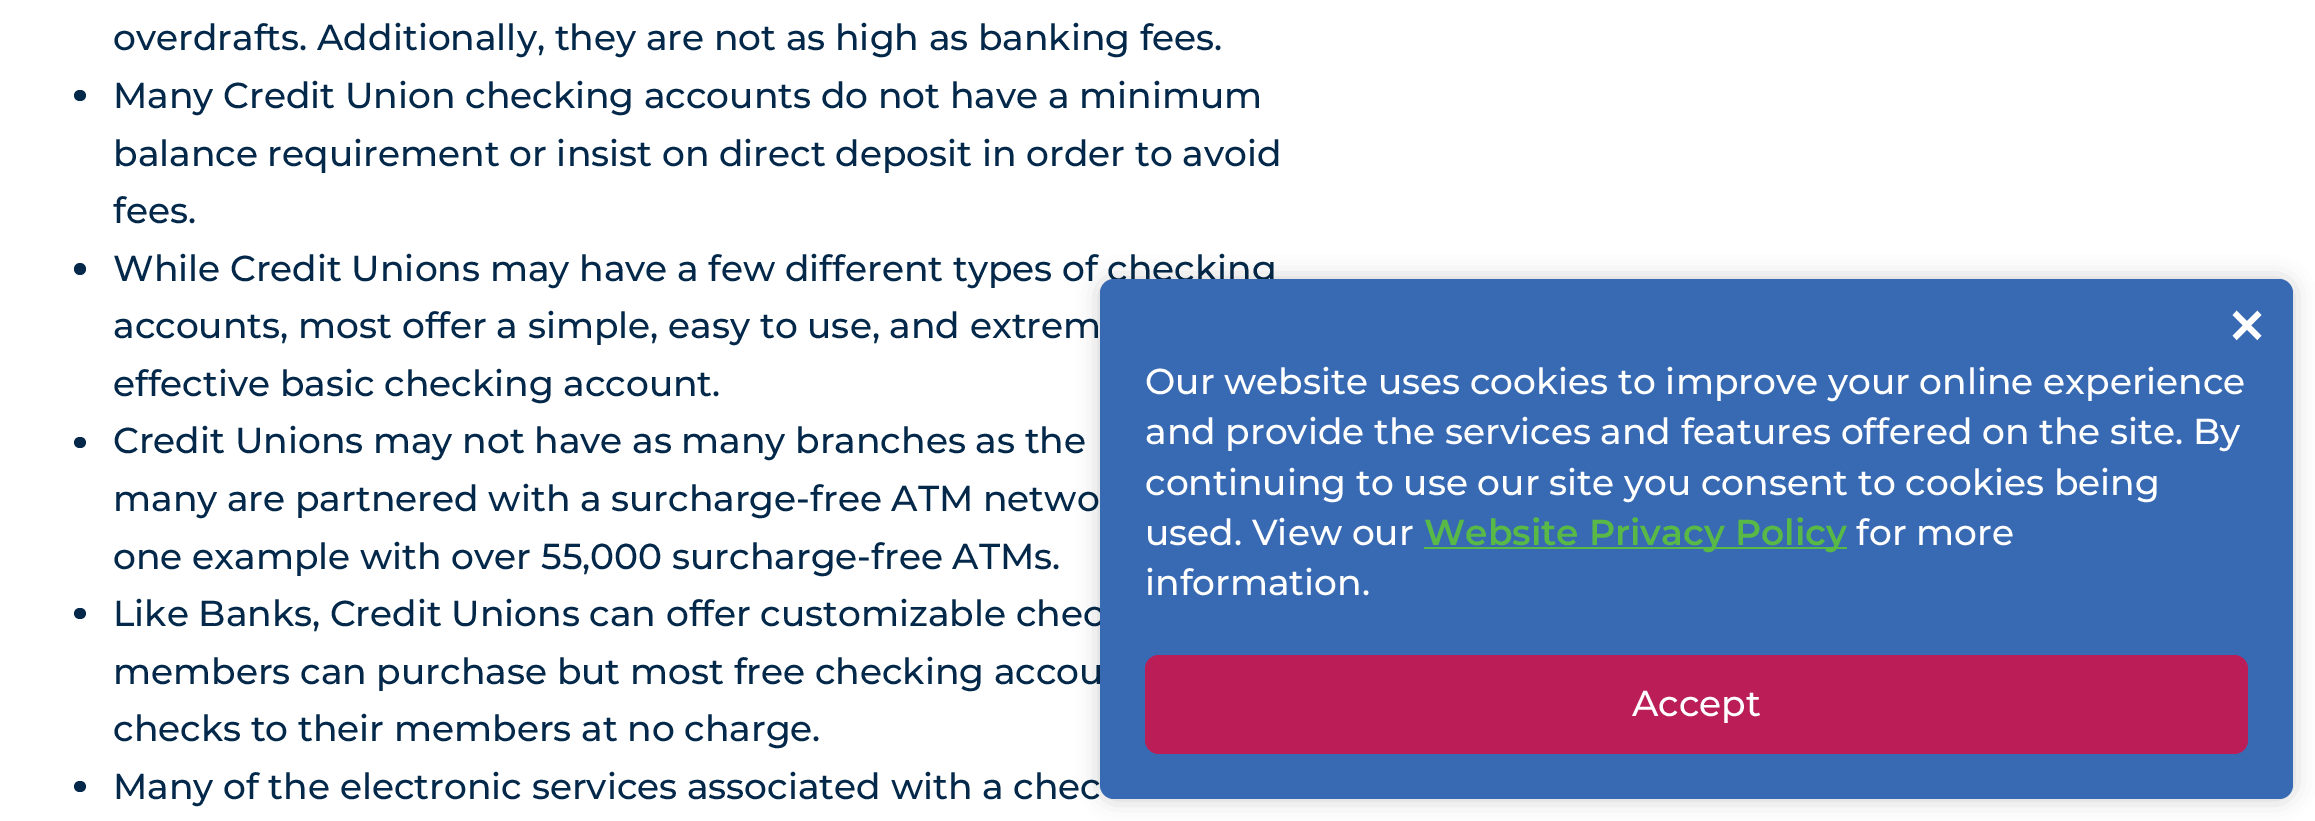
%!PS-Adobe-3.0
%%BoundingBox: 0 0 2315 821
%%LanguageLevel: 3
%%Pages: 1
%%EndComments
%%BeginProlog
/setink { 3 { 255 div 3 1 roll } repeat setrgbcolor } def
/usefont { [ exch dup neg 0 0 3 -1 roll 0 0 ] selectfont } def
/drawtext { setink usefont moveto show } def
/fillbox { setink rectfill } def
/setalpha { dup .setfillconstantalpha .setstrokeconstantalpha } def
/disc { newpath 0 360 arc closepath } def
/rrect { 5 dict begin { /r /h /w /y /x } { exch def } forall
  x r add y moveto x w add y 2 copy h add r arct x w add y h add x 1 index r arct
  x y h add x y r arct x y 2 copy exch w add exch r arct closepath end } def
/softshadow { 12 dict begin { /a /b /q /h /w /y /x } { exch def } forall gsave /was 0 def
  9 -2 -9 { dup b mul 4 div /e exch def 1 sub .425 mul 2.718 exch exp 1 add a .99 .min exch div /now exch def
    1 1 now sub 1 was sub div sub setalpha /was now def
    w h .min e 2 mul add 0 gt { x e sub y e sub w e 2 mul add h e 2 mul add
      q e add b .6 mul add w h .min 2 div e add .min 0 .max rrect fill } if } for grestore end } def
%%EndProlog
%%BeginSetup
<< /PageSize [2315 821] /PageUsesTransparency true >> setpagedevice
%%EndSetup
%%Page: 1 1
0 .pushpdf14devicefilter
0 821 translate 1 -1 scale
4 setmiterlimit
0 0 2315 821 255 255 255 fillbox
(overdrafts. Additionally, they are not as high as banking fees.) 113 50 /Montserrat-Medium 36 3 40 74 drawtext
74 90 12 11 5.5 rrect fill
(Many Credit Union checking accounts do not have a minimum) 113 108 /Montserrat-Medium 36 3 40 74 drawtext
(balance requirement or insist on direct deposit in order to avoid) 113 166 /Montserrat-Medium 36 3 40 74 drawtext
(fees.) 113 223 /Montserrat-Medium 36 3 40 74 drawtext
80 269 6 disc fill
(While Credit Unions may have a few different types of checking) 113 281 /Montserrat-Medium 36 3 40 74 drawtext
(accounts, most offer a simple, easy to use, and extrem) 113 338 /Montserrat-Medium 36 3 40 74 drawtext
(effective basic checking account.) 113 396 /Montserrat-Medium 36 3 40 74 drawtext
74 437 12 11 5.5 rrect fill
(Credit Unions may not have as many branches as the) 113 453 /Montserrat-Medium 36 3 40 74 drawtext
(many are partnered with a surcharge-free ATM netwo) 113 511 /Montserrat-Medium 36 3 40 74 drawtext
(one example with over 55,000 surcharge-free ATMs.) 113 569 /Montserrat-Medium 36 3 40 74 drawtext
74 608 12 11 5.5 rrect fill
(Like Banks, Credit Unions can offer customizable chec) 113 626 /Montserrat-Medium 36 3 40 74 drawtext
(members can purchase but most free checking accou) 113 684 /Montserrat-Medium 36 3 40 74 drawtext
(checks to their members at no charge.) 113 741 /Montserrat-Medium 36 3 40 74 drawtext
74 781 12 11 5.5 rrect fill
(Many of the electronic services associated with a chec) 113 799 /Montserrat-Medium 36 3 40 74 drawtext
0 0 0 setink
1100 279 1193 520 14 11 0.2 softshadow
56 106 179 setink
1100 279 1193 520 14 rrect fill
(×) 2224 353 /Montserrat-Medium 79 255 255 255 drawtext
(Our website uses cookies to improve your online experience) 1145 394 /Montserrat-Medium 36 255 255 255 drawtext
(and provide the services and features offered on the site. By) 1145 444 /Montserrat-Medium 36 255 255 255 drawtext
(continuing to use our site you consent to cookies being) 1145 495 /Montserrat-Medium 36 255 255 255 drawtext
(used. View our) 1145 545 /Montserrat-Medium 36 255 255 255 drawtext
1424 547 423 2 88 185 71 fillbox
(Website Privacy Policy) 1424 545 /Montserrat-SemiBold 36 88 185 71 drawtext
(for more) 1856 545 /Montserrat-Medium 36 255 255 255 drawtext
(information.) 1145 595 /Montserrat-Medium 36 255 255 255 drawtext
187 29 87 setink
1145 655 1103 99 14 rrect fill
(Accept) 1632 716 /Montserrat-Medium 36 255 255 255 drawtext
.poppdf14devicefilter showpage
%%EOF
